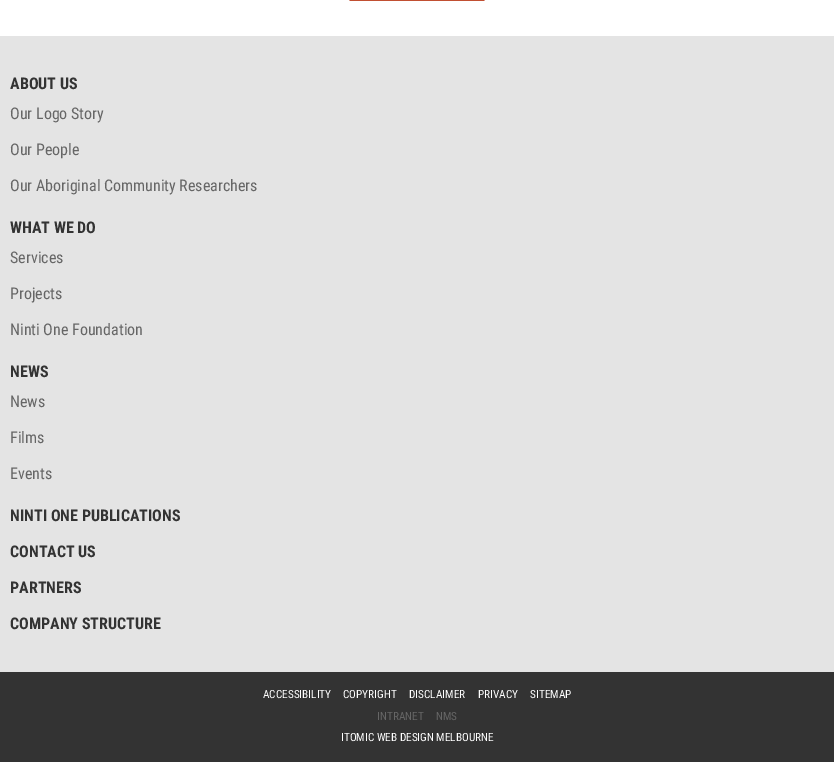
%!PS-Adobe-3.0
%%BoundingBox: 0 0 834 762
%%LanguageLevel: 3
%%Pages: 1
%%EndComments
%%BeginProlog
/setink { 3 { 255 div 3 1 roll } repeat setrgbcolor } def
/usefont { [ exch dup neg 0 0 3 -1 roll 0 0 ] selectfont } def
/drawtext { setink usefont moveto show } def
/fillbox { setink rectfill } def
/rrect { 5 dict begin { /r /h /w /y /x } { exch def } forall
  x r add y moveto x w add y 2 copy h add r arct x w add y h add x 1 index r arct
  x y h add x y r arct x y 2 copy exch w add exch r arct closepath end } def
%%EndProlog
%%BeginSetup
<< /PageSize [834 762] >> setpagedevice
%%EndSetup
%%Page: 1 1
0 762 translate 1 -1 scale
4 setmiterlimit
0 0 834 762 255 255 255 fillbox
193 79 50 setink
349 -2 136 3 2 rrect fill
0 36 834 636 228 228 228 fillbox
(ABOUT US) 10 89 /RobotoCondensed-Bold 16 51 51 51 drawtext
(Our Logo Story) 10 119 /RobotoCondensed-Regular 16 102 102 102 drawtext
(Our People) 10 155 /RobotoCondensed-Regular 16 102 102 102 drawtext
(Our Aboriginal Community Researchers) 10 191 /RobotoCondensed-Regular 16 102 102 102 drawtext
(WHAT WE DO) 10 233 /RobotoCondensed-Bold 16 51 51 51 drawtext
(Services) 10 263 /RobotoCondensed-Regular 16 102 102 102 drawtext
(Projects) 10 299 /RobotoCondensed-Regular 16 102 102 102 drawtext
(Ninti One Foundation) 10 335 /RobotoCondensed-Regular 16 102 102 102 drawtext
(NEWS) 10 377 /RobotoCondensed-Bold 16 51 51 51 drawtext
(News) 10 407 /RobotoCondensed-Regular 16 102 102 102 drawtext
(Films) 10 443 /RobotoCondensed-Regular 16 102 102 102 drawtext
(Events) 10 479 /RobotoCondensed-Regular 16 102 102 102 drawtext
(NINTI ONE PUBLICATIONS) 10 521 /RobotoCondensed-Bold 16 51 51 51 drawtext
(CONTACT US) 10 557 /RobotoCondensed-Bold 16 51 51 51 drawtext
(PARTNERS) 10 593 /RobotoCondensed-Bold 16 51 51 51 drawtext
(COMPANY STRUCTURE) 10 629 /RobotoCondensed-Bold 16 51 51 51 drawtext
0 672 834 90 51 51 51 fillbox
(ACCESSIBILITY) 263 698 /RobotoCondensed-Regular 11.25 255 255 255 drawtext
(COPYRIGHT) 343 698 /RobotoCondensed-Regular 11.25 255 255 255 drawtext
(DISCLAIMER) 409 698 /RobotoCondensed-Regular 11.25 255 255 255 drawtext
(PRIVACY) 478 698 /RobotoCondensed-Regular 11.25 255 255 255 drawtext
(SITEMAP) 530 698 /RobotoCondensed-Regular 11.25 255 255 255 drawtext
(INTRANET) 377 720 /RobotoCondensed-Regular 11.25 102 102 102 drawtext
(NMS) 436 720 /RobotoCondensed-Regular 11.25 102 102 102 drawtext
(ITOMIC WEB DESIGN MELBOURNE) 341 741 /RobotoCondensed-Regular 11.25 255 255 255 drawtext
showpage
%%EOF
